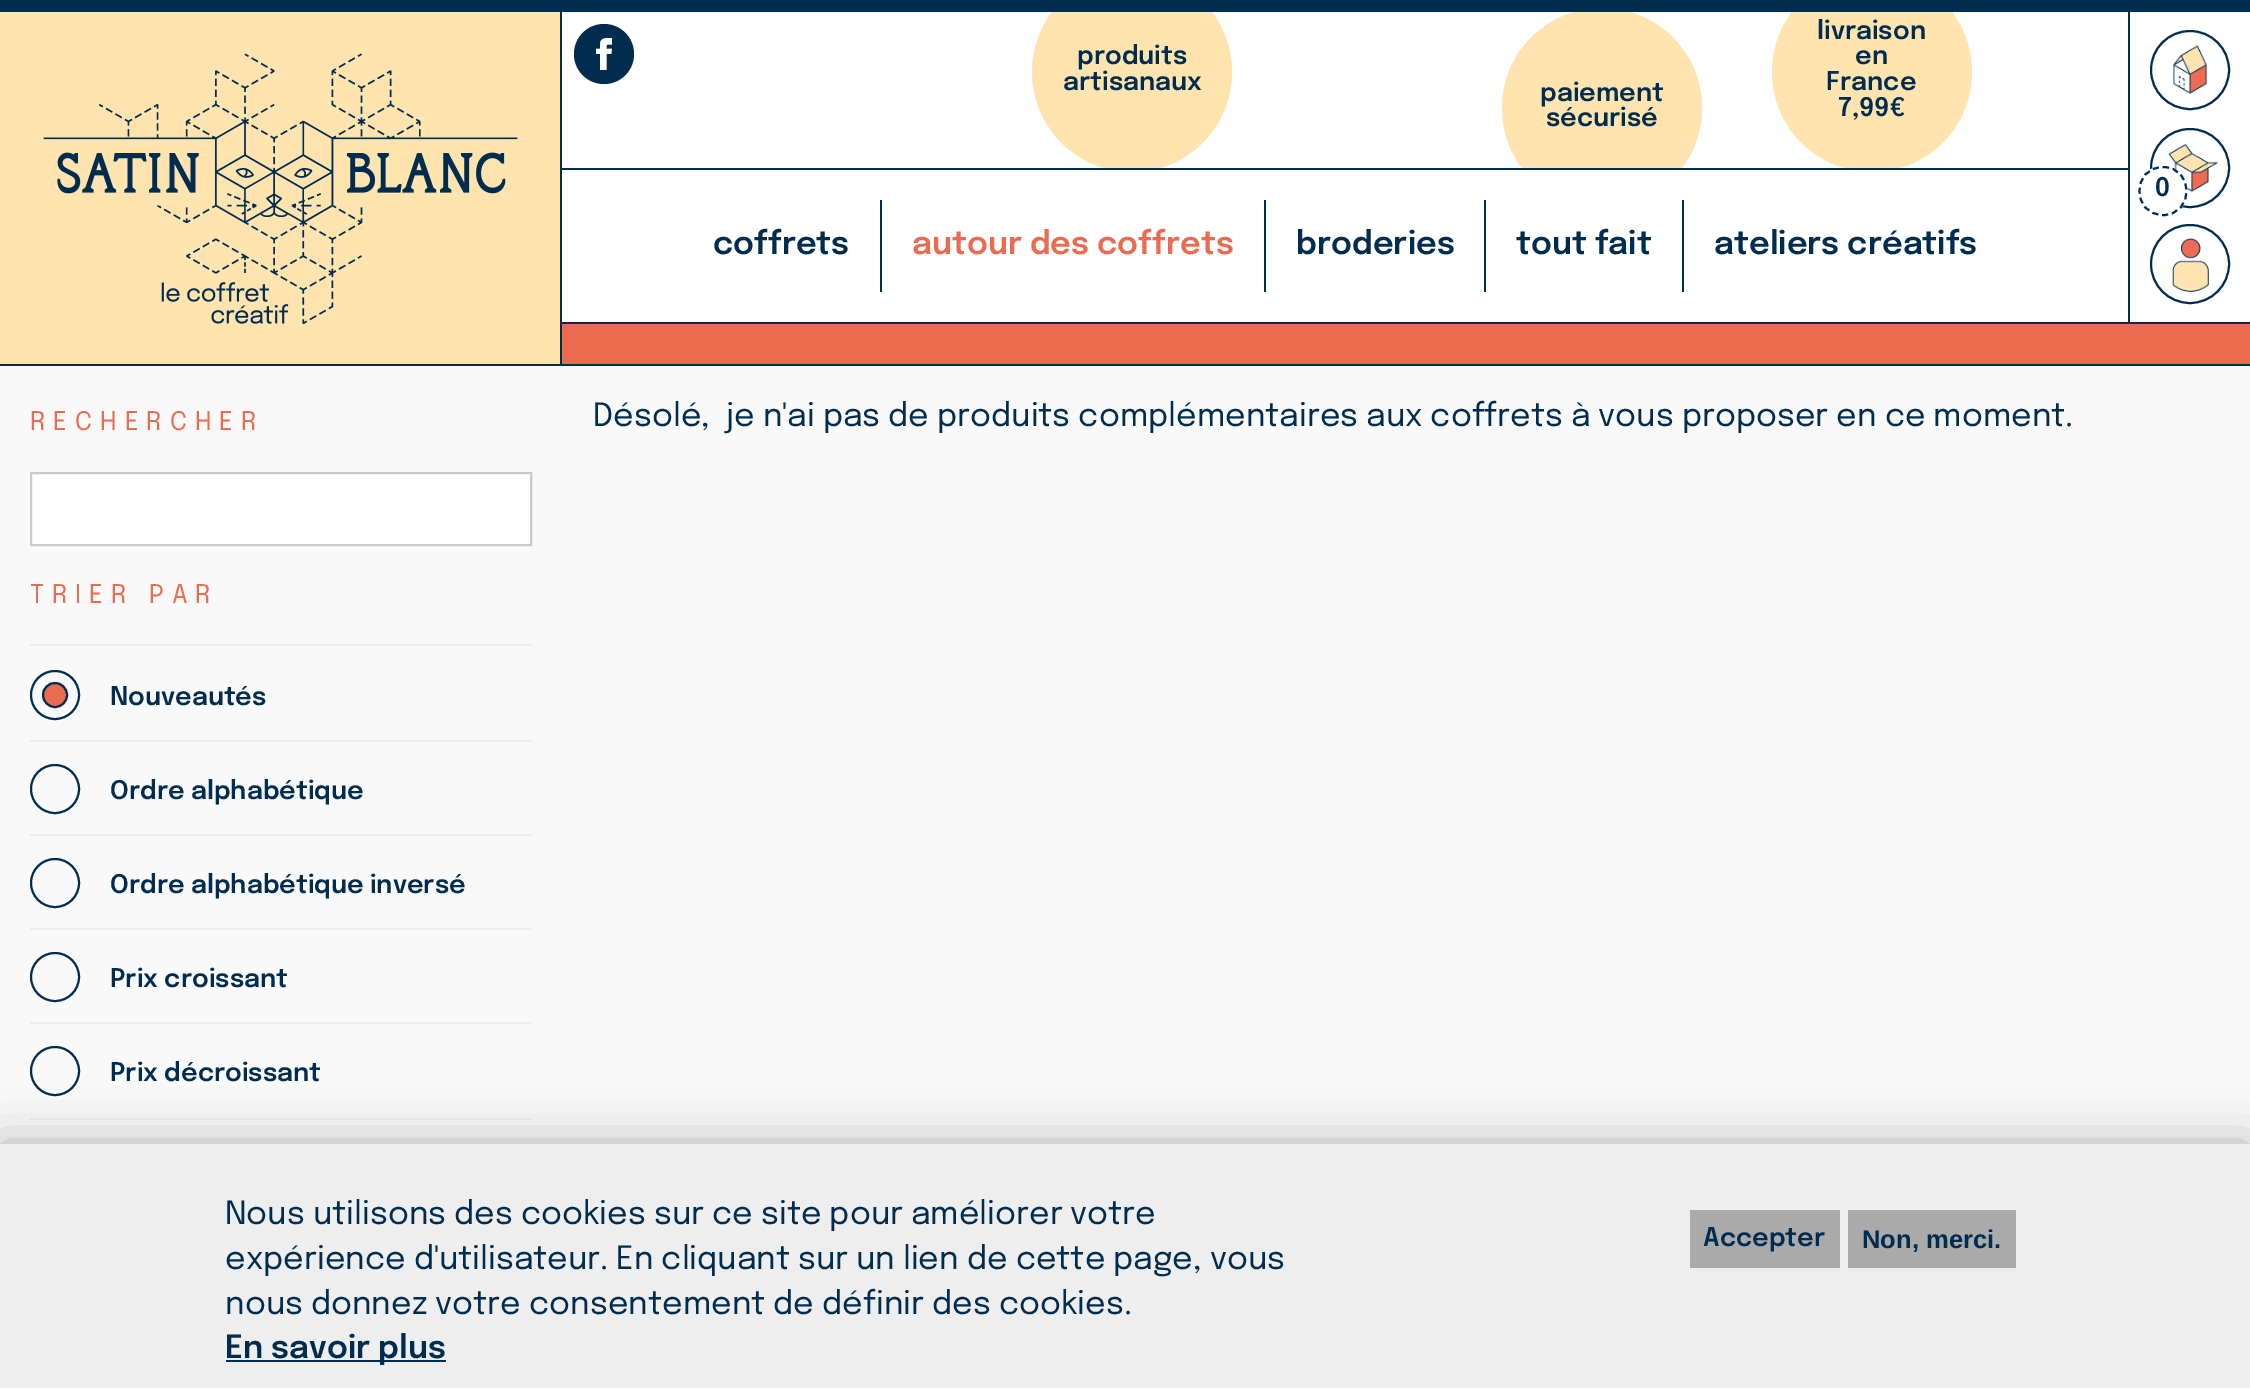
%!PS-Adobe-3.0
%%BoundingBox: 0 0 2250 1388
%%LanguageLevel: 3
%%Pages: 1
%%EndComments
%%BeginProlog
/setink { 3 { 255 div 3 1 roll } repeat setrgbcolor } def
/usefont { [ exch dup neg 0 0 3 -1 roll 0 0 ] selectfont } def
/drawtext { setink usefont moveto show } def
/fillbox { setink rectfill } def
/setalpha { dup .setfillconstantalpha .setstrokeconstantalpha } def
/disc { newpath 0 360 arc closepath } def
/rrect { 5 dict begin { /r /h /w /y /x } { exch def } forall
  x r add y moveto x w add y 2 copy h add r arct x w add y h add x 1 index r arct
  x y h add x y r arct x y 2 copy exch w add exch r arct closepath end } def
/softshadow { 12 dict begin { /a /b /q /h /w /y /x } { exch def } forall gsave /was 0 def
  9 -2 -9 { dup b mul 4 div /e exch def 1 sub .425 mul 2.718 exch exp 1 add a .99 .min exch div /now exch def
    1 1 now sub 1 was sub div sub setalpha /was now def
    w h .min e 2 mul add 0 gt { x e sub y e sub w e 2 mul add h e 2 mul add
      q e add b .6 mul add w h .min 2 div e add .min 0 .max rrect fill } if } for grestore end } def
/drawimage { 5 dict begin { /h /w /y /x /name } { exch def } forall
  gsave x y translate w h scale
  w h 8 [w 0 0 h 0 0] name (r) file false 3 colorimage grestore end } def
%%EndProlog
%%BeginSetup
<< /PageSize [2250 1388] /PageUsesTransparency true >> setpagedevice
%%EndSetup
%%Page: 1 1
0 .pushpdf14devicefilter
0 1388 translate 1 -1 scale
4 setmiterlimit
0 0 2250 1388 249 249 249 fillbox
562 12 1566 156 255 255 255 fillbox
255 228 176 setink
1132 72 100 disc fill
1872 72 100 disc fill
1602 108 100 disc fill
0 0 2250 12 0 45 79 fillbox
0 364 2250 2 0 45 79 fillbox
0 12 560 352 255 228 176 fillbox
560 12 2 352 0 45 79 fillbox
(assets/img1.rgb) 43 53 475 272 drawimage
604 54 30 disc fill
(assets/img2.rgb) 596 38 16 32 drawimage
(produits) 1077 64 /Epilogue-SemiBold 25.6 0 45 79 drawtext
(artisanaux) 1063 90 /Epilogue-SemiBold 25.6 0 45 79 drawtext
(livraison) 1817 39 /Epilogue-SemiBold 25.6 0 45 79 drawtext
(en) 1855 64 /Epilogue-SemiBold 25.6 0 45 79 drawtext
(France) 1826 90 /Epilogue-SemiBold 25.6 0 45 79 drawtext
(7,99€) 1838 116 /Epilogue-SemiBold 25.6 0 45 79 drawtext
(paiement) 1540 101 /Epilogue-SemiBold 25.6 0 45 79 drawtext
(sécurisé) 1546 126 /Epilogue-SemiBold 25.6 0 45 79 drawtext
562 170 1566 152 255 255 255 fillbox
562 168 1566 2 0 45 79 fillbox
880 200 2 92 0 45 79 fillbox
(coffrets) 713 254 /Epilogue-SemiBold 32 0 45 79 drawtext
1264 200 2 92 0 45 79 fillbox
(autour des coffrets) 912 254 /Epilogue-SemiBold 32 235 107 81 drawtext
1484 200 2 92 0 45 79 fillbox
(broderies) 1296 254 /Epilogue-SemiBold 32 0 45 79 drawtext
1682 200 2 92 0 45 79 fillbox
(tout fait) 1516 254 /Epilogue-SemiBold 32 0 45 79 drawtext
(ateliers créatifs) 1714 254 /Epilogue-SemiBold 32 0 45 79 drawtext
2130 12 120 310 255 255 255 fillbox
2128 12 2 310 0 45 79 fillbox
(assets/img3.rgb) 2173 45 35 49 drawimage
2 setlinewidth
2190 70 39 disc stroke
(assets/img4.rgb) 2168 143 50 49 drawimage
2190 168 39 disc stroke
255 255 255 setink
2163 191 25 disc fill
0 45 79 setink
[6 4] 0 setdash
2163 167 moveto 2194.5 167 2194.5 215 2163 215 curveto 2131.5 215 2131.5 167 2163 167 curveto closepath stroke
(0) 2155 196 /Epilogue-SemiBold 25.6 0 45 79 drawtext
(assets/img5.rgb) 2172 238 37 54 drawimage
[] 0 setdash
2190 264 39 disc stroke
562 324 1688 40 235 107 81 fillbox
562 322 1688 2 0 45 79 fillbox
/Epilogue-Regular 25.6 usefont
235 107 81 setink
30 430 moveto 8 0 (RECHERCHER) ashow
255 255 255 setink
31 473 moveto 531 473 lineto 531 545 lineto 31 545 lineto closepath gsave fill grestore
202 202 202 setink
stroke
30 644 502 2 238 238 238 fillbox
235 107 81 setink
30 603 moveto 8 0 (TRIER PAR) ashow
30 740 502 2 238 238 238 fillbox
235 107 81 setink
55 695 12 disc gsave fill grestore
0 45 79 setink
stroke
55 695 24 disc stroke
(Nouveautés) 110 705 /Epilogue-SemiBold 25.6 0 45 79 drawtext
30 834 502 2 238 238 238 fillbox
0 45 79 setink
55 789 24 disc stroke
(Ordre alphabétique) 110 799 /Epilogue-SemiBold 25.6 0 45 79 drawtext
30 928 502 2 238 238 238 fillbox
0 45 79 setink
55 883 24 disc stroke
(Ordre alphabétique inversé) 110 893 /Epilogue-SemiBold 25.6 0 45 79 drawtext
30 1022 502 2 238 238 238 fillbox
0 45 79 setink
55 977 24 disc stroke
(Prix croissant) 110 987 /Epilogue-SemiBold 25.6 0 45 79 drawtext
30 1118 502 2 238 238 238 fillbox
0 45 79 setink
55 1071 24 disc stroke
(Prix décroissant) 110 1081 /Epilogue-SemiBold 25.6 0 45 79 drawtext
(Désolé,  je n'ai pas de produits complémentaires aux coffrets à vous proposer en ce moment.) 593 426 /Epilogue-Regular 32 0 45 79 drawtext
0 0 0 setink
0 1144 2250 244 0 25 0.3 softshadow
0 1144 2250 244 238 238 238 fillbox
(Nous utilisons des cookies sur ce site pour améliorer votre) 225 1224 /Epilogue-Regular 32 0 45 79 drawtext
(expérience d'utilisateur. En cliquant sur un lien de cette page, vous) 225 1269 /Epilogue-Regular 32 0 45 79 drawtext
(nous donnez votre consentement de définir des cookies.) 225 1314 /Epilogue-Regular 32 0 45 79 drawtext
226 1360 220 2 0 45 79 fillbox
(En savoir plus) 225 1358 /Epilogue-SemiBold 32 0 45 79 drawtext
1690 1210 150 58 170 170 170 fillbox
(Accepter) 1703 1246 /Epilogue-SemiBold 25.6 0 45 79 drawtext
1848 1210 168 58 170 170 170 fillbox
(Non, merci.) 1862 1248 /LiberationSans-Bold 25.6 0 45 79 drawtext
.poppdf14devicefilter showpage
%%EOF
